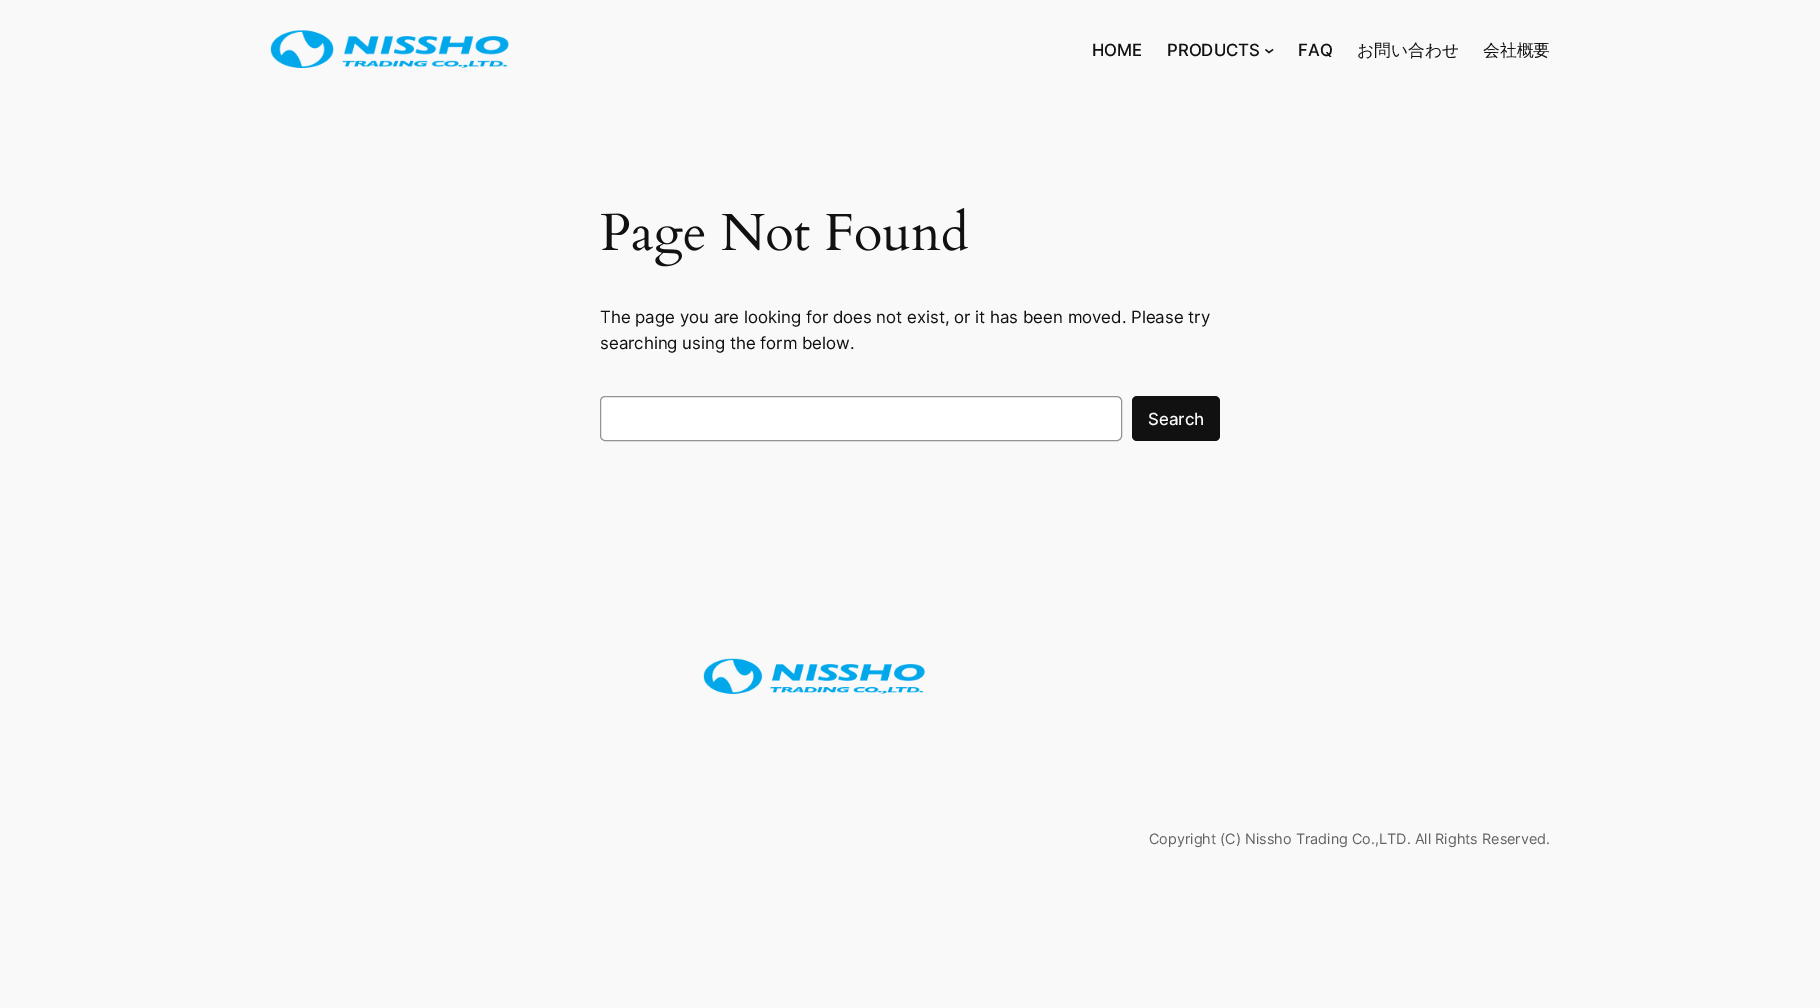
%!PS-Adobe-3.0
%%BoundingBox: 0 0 1820 1008
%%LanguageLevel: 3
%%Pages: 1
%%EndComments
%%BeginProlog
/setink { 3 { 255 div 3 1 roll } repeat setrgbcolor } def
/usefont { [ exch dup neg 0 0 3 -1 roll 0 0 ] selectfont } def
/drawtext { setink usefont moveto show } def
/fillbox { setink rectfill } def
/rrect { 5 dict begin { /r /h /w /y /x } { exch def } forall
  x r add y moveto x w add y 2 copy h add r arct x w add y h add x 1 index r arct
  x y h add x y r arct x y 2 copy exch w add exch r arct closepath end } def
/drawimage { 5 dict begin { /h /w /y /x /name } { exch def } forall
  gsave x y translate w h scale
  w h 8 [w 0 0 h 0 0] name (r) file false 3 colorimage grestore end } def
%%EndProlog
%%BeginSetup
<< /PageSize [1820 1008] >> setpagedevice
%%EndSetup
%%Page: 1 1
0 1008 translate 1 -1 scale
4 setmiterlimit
0 0 1820 1008 249 249 249 fillbox
(assets/img1.rgb) 270 30 239 38 drawimage
(HOME) 1092 56 /Inter-Medium 16.8 17 17 17 drawtext
(PRODUCTS) 1167 56 /Inter-Medium 16.8 17 17 17 drawtext
1.3 setlinewidth
1265.5 49.5 moveto 1269 52.5 lineto 1273 49.5 lineto stroke
(FAQ) 1298 56 /Inter-Medium 16.8 17 17 17 drawtext
(お問い合わせ) 1357 56 /WenQuanYiZenHei-Medium 16.8 17 17 17 drawtext
(会社概要) 1483 56 /WenQuanYiZenHei-Medium 16.8 17 17 17 drawtext
(assets/img2.rgb) 601 208 367 59 drawimage
(The page you are looking for does not exist, or it has been moved. Please try) 600 323 /Inter-Regular 16.8 17 17 17 drawtext
(searching using the form below.) 600 349 /Inter-Regular 16.8 17 17 17 drawtext
255 255 255 setink
600.5 396.5 521 44 4.5 rrect gsave fill grestore
148 148 148 setink
1 setlinewidth
stroke
17 17 17 setink
1132 396 88 45 5 rrect fill
(Search) 1148 425 /Inter-Medium 16.8 249 249 249 drawtext
(assets/img3.rgb) 703 658 222 36 drawimage
(Copyright \(C\) Nissho Trading Co.,LTD. All Rights Reserved.) 1149 844 /Inter-Regular 14.4 99 99 99 drawtext
showpage
%%EOF
